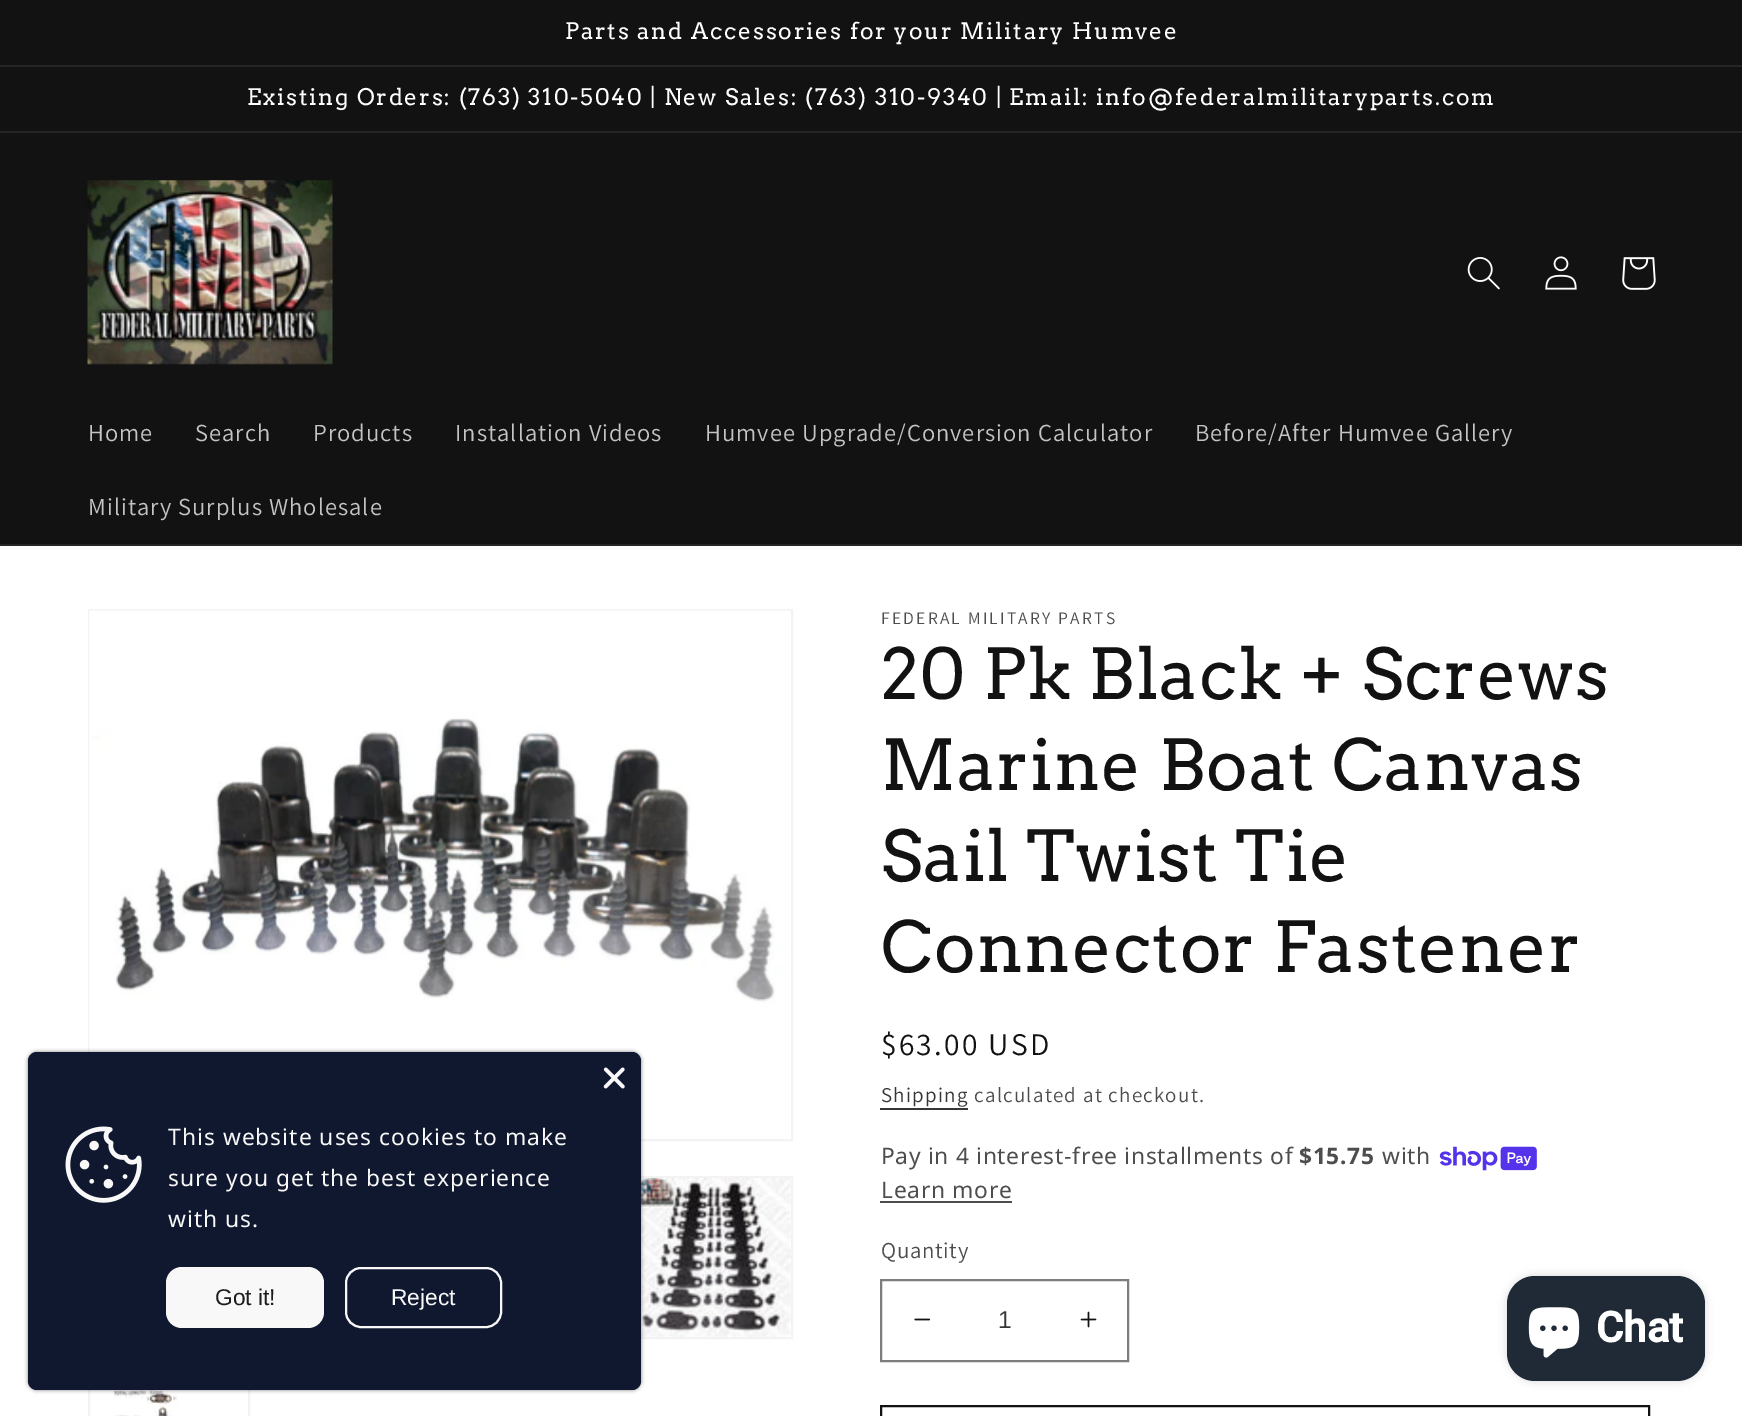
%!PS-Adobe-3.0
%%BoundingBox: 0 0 1742 1416
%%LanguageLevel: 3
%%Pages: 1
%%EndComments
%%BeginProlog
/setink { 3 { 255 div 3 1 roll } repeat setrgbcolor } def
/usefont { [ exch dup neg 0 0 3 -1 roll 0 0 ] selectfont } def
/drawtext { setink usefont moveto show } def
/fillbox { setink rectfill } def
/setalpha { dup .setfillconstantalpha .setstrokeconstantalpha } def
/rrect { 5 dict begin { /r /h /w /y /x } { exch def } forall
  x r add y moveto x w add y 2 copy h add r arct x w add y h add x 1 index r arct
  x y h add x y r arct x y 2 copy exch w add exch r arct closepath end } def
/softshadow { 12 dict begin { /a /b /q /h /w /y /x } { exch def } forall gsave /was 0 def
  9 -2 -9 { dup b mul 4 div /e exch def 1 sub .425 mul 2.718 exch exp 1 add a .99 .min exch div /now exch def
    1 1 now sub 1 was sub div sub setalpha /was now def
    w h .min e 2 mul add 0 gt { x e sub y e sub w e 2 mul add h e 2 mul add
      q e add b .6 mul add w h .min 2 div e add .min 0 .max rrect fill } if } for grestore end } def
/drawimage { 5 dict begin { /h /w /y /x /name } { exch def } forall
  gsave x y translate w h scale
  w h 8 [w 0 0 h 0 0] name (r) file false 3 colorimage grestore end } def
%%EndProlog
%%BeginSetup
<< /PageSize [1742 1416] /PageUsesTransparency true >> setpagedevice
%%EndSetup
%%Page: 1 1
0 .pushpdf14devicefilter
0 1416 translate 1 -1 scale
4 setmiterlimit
0 0 1742 1416 255 255 255 fillbox
0 0 1742 65 18 18 18 fillbox
0 65 1742 2 37 37 37 fillbox
/Arvo-Regular 22.75 usefont
255 255 255 setink
565 39 moveto 1.75 0 (Parts and Accessories for your Military Humvee) ashow
0 67 1742 64 18 18 18 fillbox
0 131 1742 2 37 37 37 fillbox
255 255 255 setink
247 105 moveto 1.75 0 (Existing Orders: \(763\) 310-5040 | New Sales: \(763\) 310-9340 | Email: info@federalmilitaryparts.com) ashow
0 133 1742 411 18 18 18 fillbox
0 544 1742 2 37 37 37 fillbox
(assets/img1.rgb) 87 180 246 185 drawimage
(assets/img2.rgb) 1467 257 33 33 drawimage
(assets/img3.rgb) 1545 256 32 34 drawimage
(assets/img4.rgb) 1622 257 34 33 drawimage
/Assistant-Regular 24.5 usefont
196 196 196 setink
88 441 moveto 1.05 0 (Home) ashow
195 441 moveto 1.05 0 (Search) ashow
313 441 moveto 1.05 0 (Products) ashow
455 441 moveto 1.05 0 (Installation Videos) ashow
705 441 moveto 1.05 0 (Humvee Upgrade/Conversion Calculator) ashow
1195 441 moveto 1.05 0 (Before/After Humvee Gallery) ashow
88 515 moveto 1.05 0 (Military Surplus Wholesale) ashow
243 243 243 setink
2 setlinewidth
89 610 703 530 rectstroke
(assets/img7.rgb) 89 610 701 529 drawimage
631 1177 161 161 rectstroke
(assets/img8.rgb) 641 1178 150 159 drawimage
89 1357 160 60 rectstroke
(assets/img9.rgb) 112 1390 93 26 drawimage
0 0 0 setink
28 1052 613 338 9 2 0.5 softshadow
16 24 47 setink
28 1052 613 338 9 rrect fill
(assets/img5.rgb) 603 1067 22 22 drawimage
(assets/img6.rgb) 65 1126 77 77 drawimage
/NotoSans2-Regular 22.75 usefont
248 248 248 setink
168 1145 moveto 1.05 0 (This website uses cookies to make) ashow
168 1186 moveto 1.05 0 (sure you get the best experience) ashow
168 1227 moveto 1.05 0 (with us.) ashow
166 1267 158 61 16 rrect fill
(Got it!) 215 1305 /LiberationSans-Regular 22.75 29 29 29 drawtext
248 248 248 setink
346 1268 155 59 15 rrect stroke
(Reject) 391 1305 /LiberationSans-Regular 22.75 248 248 248 drawtext
/Assistant-Regular 17.5 usefont
77 77 77 setink
881 624 moveto 2.25 0 (FEDERAL MILITARY PARTS) ashow
/Arvo-Regular 70 usefont
18 18 18 setink
881 699 moveto 1.05 0 (20 Pk Black + Screws) ashow
881 790 moveto 1.05 0 (Marine Boat Canvas) ashow
881 881 moveto 1.05 0 (Sail Twist Tie) ashow
881 972 moveto 1.05 0 (Connector Fastener) ashow
/Assistant-Regular 31.5 usefont
881 1055 moveto 2.25 0 ($63.00 USD) ashow
/Assistant-Regular 21 usefont
54 54 54 setink
881 1102 moveto 1.25 0 (Shipping) ashow
880 1108 88 2 54 54 54 fillbox
77 77 77 setink
974 1102 moveto 1.25 0 (calculated at checkout.) ashow
/NotoSans-Regular 22.75 usefont
881 1164 moveto 0.7 0 (Pay in 4 interest-free installments of) ashow
/NotoSans-Bold 22.75 usefont
1299 1164 moveto 0.7 0 ($15.75) ashow
/NotoSans-Regular 22.75 usefont
1382 1164 moveto 0.7 0 (with) ashow
(assets/img10.rgb) 1439 1146 98 25 drawimage
881 1198 moveto 0.7 0 (Learn more) ashow
880 1201 132 2 77 77 77 fillbox
/Assistant-Regular 22.75 usefont
881 1258 moveto 0.7 0 (Quantity) ashow
(assets/img11.rgb) 914 1318 17 3 drawimage
(assets/img12.rgb) 1080 1311 17 17 drawimage
125 125 125 setink
881 1280 247 81 rectstroke
(1) 998 1328 /LiberationSans-Regular 24.5 54 54 54 drawtext
18 18 18 setink
881 1406 768 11 rectstroke
0 0 0 setink
1507 1276 198 105 28 4.5 0.15 softshadow
32 42 54 setink
1507 1276 198 105 28 rrect fill
(assets/img13.rgb) 1528 1307 52 51 drawimage
(Chat) 1596 1342 /Roboto-Bold 42 255 255 255 drawtext
.poppdf14devicefilter showpage
%%EOF
